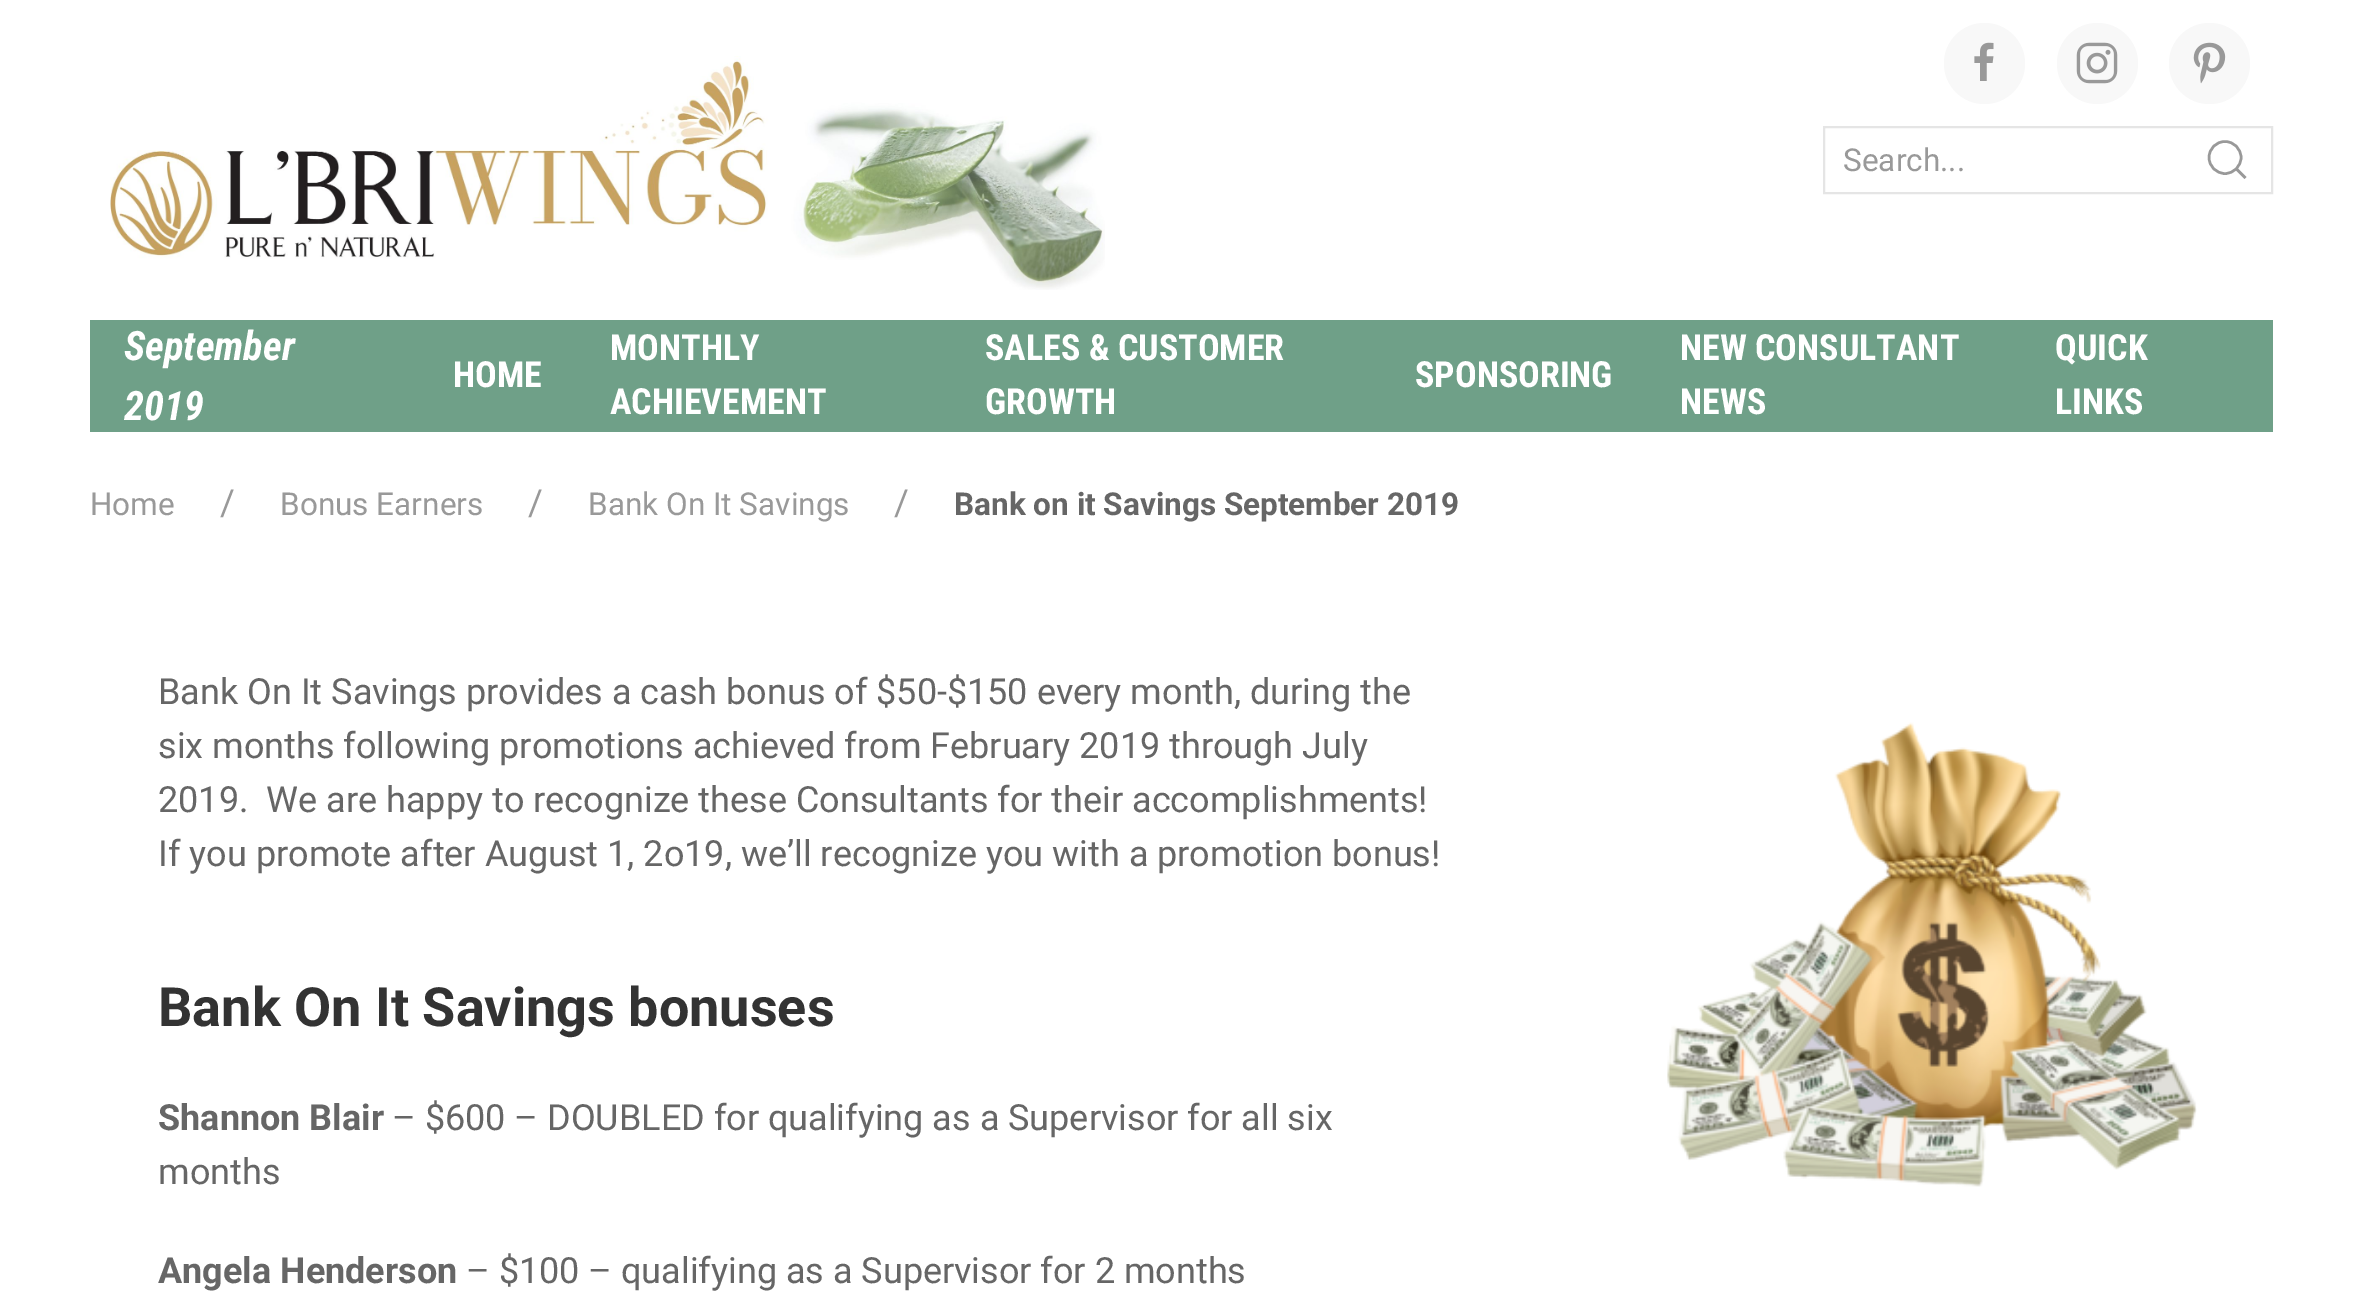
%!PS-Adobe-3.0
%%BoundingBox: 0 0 2362 1292
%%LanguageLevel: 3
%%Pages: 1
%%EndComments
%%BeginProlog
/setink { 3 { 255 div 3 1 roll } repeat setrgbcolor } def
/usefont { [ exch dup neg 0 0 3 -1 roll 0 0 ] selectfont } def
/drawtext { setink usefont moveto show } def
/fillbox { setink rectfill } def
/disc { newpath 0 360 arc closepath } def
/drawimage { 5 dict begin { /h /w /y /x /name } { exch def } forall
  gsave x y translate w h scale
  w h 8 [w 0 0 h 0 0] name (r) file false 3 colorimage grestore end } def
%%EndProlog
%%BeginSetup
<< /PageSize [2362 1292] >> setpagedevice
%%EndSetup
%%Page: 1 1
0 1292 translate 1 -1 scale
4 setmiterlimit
0 0 2362 1292 255 255 255 fillbox
(assets/img1.rgb) 110 56 995 234 drawimage
248 248 248 setink
1984.5 63.5 40.5 disc fill
(assets/img2.rgb) 1974 42 20 39 drawimage
2097.5 63.5 40.5 disc fill
(assets/img3.rgb) 2076 42 42 42 drawimage
2209.5 63.5 40.5 disc fill
(assets/img4.rgb) 2193 42 33 42 drawimage
229 229 229 setink
2 setlinewidth
1824 127 448 66 rectstroke
(Search...) 1843 171 /Roboto-Regular 31.5 153 153 153 drawtext
2.5 setlinewidth
2225 157.5 16 disc stroke
2236.5 169 moveto 2245.5 178 lineto closepath stroke
90 320 2183 112 111 160 136 fillbox
(September) 124 360 /RobotoCondensed-BoldItalic 40.5 255 255 255 drawtext
(2019) 124 420 /RobotoCondensed-BoldItalic 40.5 255 255 255 drawtext
(HOME) 453 387 /RobotoCondensed-Bold 36 255 255 255 drawtext
(MONTHLY) 610 360 /RobotoCondensed-Bold 36 255 255 255 drawtext
(ACHIEVEMENT) 610 414 /RobotoCondensed-Bold 36 255 255 255 drawtext
(SALES & CUSTOMER) 985 360 /RobotoCondensed-Bold 36 255 255 255 drawtext
(GROWTH) 985 414 /RobotoCondensed-Bold 36 255 255 255 drawtext
(SPONSORING) 1415 387 /RobotoCondensed-Bold 36 255 255 255 drawtext
(NEW CONSULTANT) 1680 360 /RobotoCondensed-Bold 36 255 255 255 drawtext
(NEWS) 1680 414 /RobotoCondensed-Bold 36 255 255 255 drawtext
(QUICK) 2055 360 /RobotoCondensed-Bold 36 255 255 255 drawtext
(LINKS) 2055 414 /RobotoCondensed-Bold 36 255 255 255 drawtext
(Home) 90 515 /Roboto-Regular 31.5 153 153 153 drawtext
(/) 220 515 /Roboto-Regular 36 153 153 153 drawtext
(Bonus Earners) 280 515 /Roboto-Regular 31.5 153 153 153 drawtext
(/) 528 515 /Roboto-Regular 36 153 153 153 drawtext
(Bank On It Savings) 588 515 /Roboto-Regular 31.5 153 153 153 drawtext
(/) 894 515 /Roboto-Regular 36 153 153 153 drawtext
(Bank on it Savings September 2019) 954 515 /Roboto-Bold 31.5 102 102 102 drawtext
(Bank On It Savings provides a cash bonus of $50-$150 every month, during the) 158 704 /Roboto-Regular 36 102 102 102 drawtext
(six months following promotions achieved from February 2019 through July) 158 758 /Roboto-Regular 36 102 102 102 drawtext
(2019.  We are happy to recognize these Consultants for their accomplishments!) 158 812 /Roboto-Regular 36 102 102 102 drawtext
(If you promote after August 1, 2o19, we’ll recognize you with a promotion bonus!) 158 866 /Roboto-Regular 36 102 102 102 drawtext
(Bank On It Savings bonuses) 158 1026 /Roboto-Bold 54 51 51 51 drawtext
(Shannon Blair) 158 1130 /Roboto-Bold 36 102 102 102 drawtext
(– $600 – DOUBLED for qualifying as a Supervisor for all six) 392 1130 /Roboto-Regular 36 102 102 102 drawtext
(months) 158 1184 /Roboto-Regular 36 102 102 102 drawtext
(Angela Henderson) 158 1283 /Roboto-Bold 36 102 102 102 drawtext
(– $100 – qualifying as a Supervisor for 2 months) 466 1283 /Roboto-Regular 36 102 102 102 drawtext
(assets/img5.rgb) 1667 722 530 465 drawimage
showpage
%%EOF
